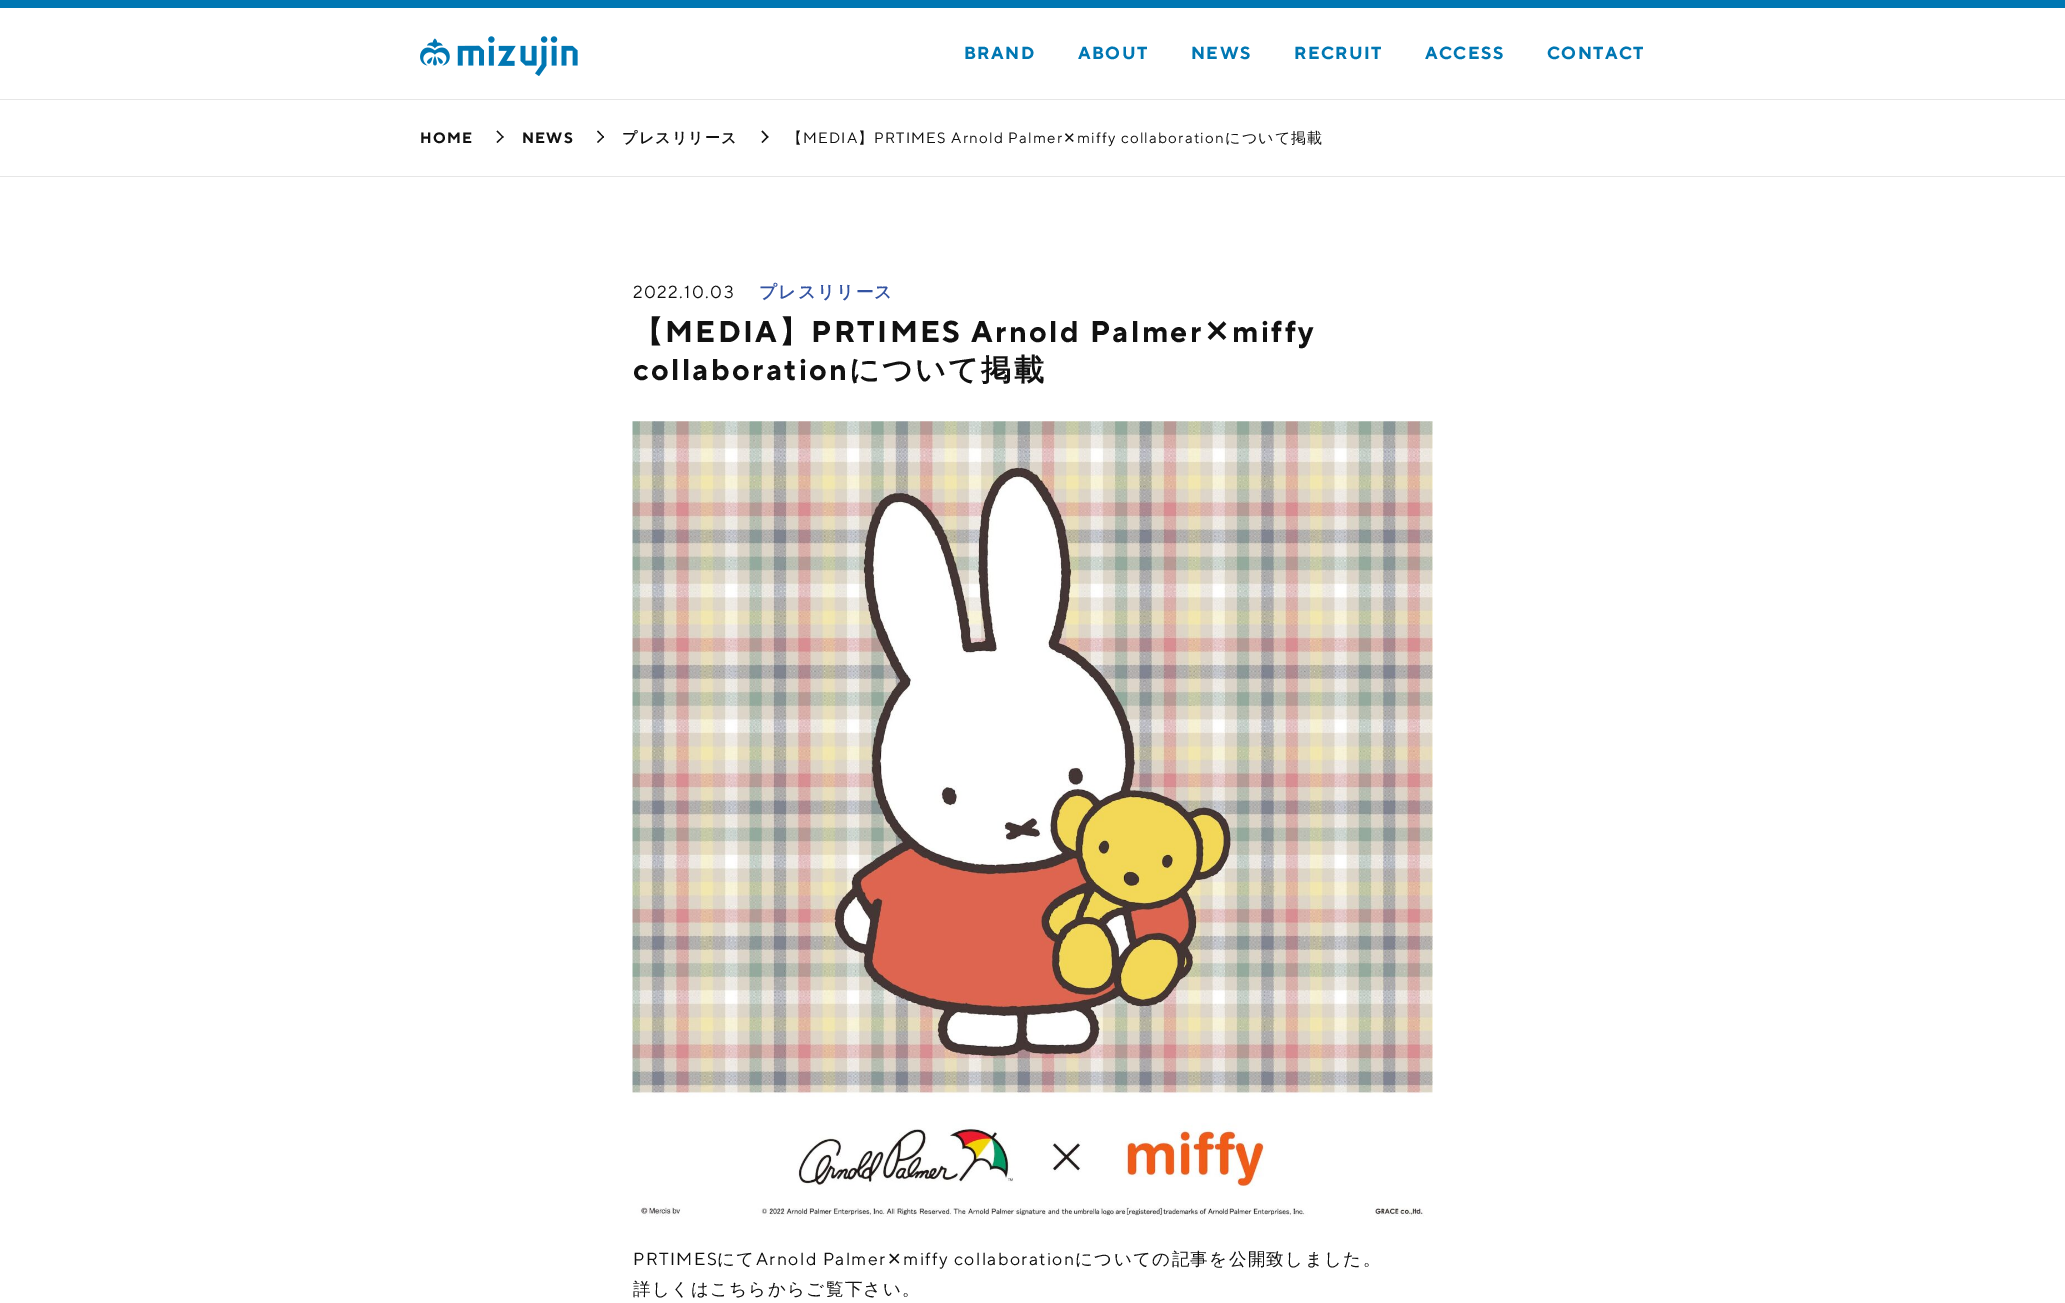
%!PS-Adobe-3.0
%%BoundingBox: 0 0 2065 1303
%%LanguageLevel: 3
%%Pages: 1
%%EndComments
%%BeginProlog
/setink { 3 { 255 div 3 1 roll } repeat setrgbcolor } def
/usefont { [ exch dup neg 0 0 3 -1 roll 0 0 ] selectfont } def
/fillbox { setink rectfill } def
/drawimage { 5 dict begin { /h /w /y /x /name } { exch def } forall
  gsave x y translate w h scale
  w h 8 [w 0 0 h 0 0] name (r) file false 3 colorimage grestore end } def
%%EndProlog
%%BeginSetup
<< /PageSize [2065 1303] >> setpagedevice
%%EndSetup
%%Page: 1 1
0 1303 translate 1 -1 scale
4 setmiterlimit
0 0 2065 1303 255 255 255 fillbox
0 0 2065 8 0 119 179 fillbox
0 99 2065 1 230 230 230 fillbox
(assets/img1.rgb) 420 36 158 40 drawimage
/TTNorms-Bold 17.5 usefont
0 119 179 setink
964 59 moveto 1.4 0 (BRAND) ashow
1078 59 moveto 1.4 0 (ABOUT) ashow
1191 59 moveto 1.4 0 (NEWS) ashow
1294 59 moveto 1.4 0 (RECRUIT) ashow
1425 59 moveto 1.4 0 (ACCESS) ashow
1547 59 moveto 1.4 0 (CONTACT) ashow
0 176 2065 1 230 230 230 fillbox
/TTNorms-Bold 15 usefont
17 17 17 setink
420 143 moveto 1.2 0 (HOME) ashow
497.5 130.5 moveto 503.5 137 lineto 503 138 lineto 496.5 131.5 lineto closepath fill
503 136 moveto 503.5 137 lineto 497.5 143 lineto 496.5 142 lineto closepath fill
522 143 moveto 1.2 0 (NEWS) ashow
598 130.5 moveto 604 137 lineto 603.5 138 lineto 597 131.5 lineto closepath fill
603.5 136 moveto 604 137 lineto 598 143 lineto 597 142 lineto closepath fill
/WenQuanYiZenHei-Bold 15 usefont
622 143 moveto 1.2 0 (プレスリリース) ashow
762.5 130.5 moveto 768.5 137 lineto 767.5 138 lineto 761.5 131.5 lineto closepath fill
767.5 136 moveto 768.5 137 lineto 762.5 143 lineto 761.5 142 lineto closepath fill
/WenQuanYiZenHei-Medium 15 usefont
787 143 moveto 1.2 0 (【) ashow
/TTNorms-Regular 15 usefont
803 143 moveto 1.2 0 (MEDIA) ashow
/WenQuanYiZenHei-Medium 15 usefont
858 143 moveto 1.2 0 (】) ashow
/TTNorms-Regular 15 usefont
874 143 moveto 1.2 0 (PRTIMES Arnold Palmer) ashow
/DejaVuSans-Regular 15 usefont
1063 143 moveto 1.2 0 (✕) ashow
/TTNorms-Regular 15 usefont
1077 143 moveto 1.2 0 (miffy collaboration) ashow
/WenQuanYiZenHei-Medium 15 usefont
1225 143 moveto 1.2 0 (について掲載) ashow
/TTNorms-Regular 17.5 usefont
633 298 moveto 1.4 0 (2022.10.03) ashow
/WenQuanYiZenHei-Bold 17.5 usefont
51 83 162 setink
759 298 moveto 1.4 0 (プレスリリース) ashow
/WenQuanYiZenHei-Bold 30 usefont
17 17 17 setink
633 342 moveto 2.4 0 (【) ashow
/TTNorms-Bold 30 usefont
665 342 moveto 2.4 0 (MEDIA) ashow
/WenQuanYiZenHei-Bold 30 usefont
779 342 moveto 2.4 0 (】) ashow
/TTNorms-Bold 30 usefont
811 342 moveto 2.4 0 (PRTIMES Arnold Palmer) ashow
/DejaVuSans-Bold 30 usefont
1204 342 moveto 2.4 0 (✕) ashow
/TTNorms-Bold 30 usefont
1232 342 moveto 2.4 0 (miffy) ashow
633 380 moveto 2.4 0 (collaboration) ashow
/WenQuanYiZenHei-Bold 30 usefont
849 380 moveto 2.4 0 (について掲載) ashow
(assets/img2.rgb) 632 421 801 796 drawimage
/TTNorms-Regular 17.5 usefont
633 1265 moveto 1.4 0 (PRTIMES) ashow
/WenQuanYiZenHei-Medium 17.5 usefont
717 1265 moveto 1.4 0 (にて) ashow
/TTNorms-Regular 17.5 usefont
756 1265 moveto 1.4 0 (Arnold Palmer) ashow
/DejaVuSans-Regular 17.5 usefont
887 1265 moveto 1.4 0 (✕) ashow
/TTNorms-Regular 17.5 usefont
903 1265 moveto 1.4 0 (miffy collaboration) ashow
/WenQuanYiZenHei-Medium 17.5 usefont
1075 1265 moveto 1.4 0 (についての記事を公開致しました。) ashow
633 1295 moveto 1.4 0 (詳しくはこちらからご覧下さい。) ashow
showpage
%%EOF
